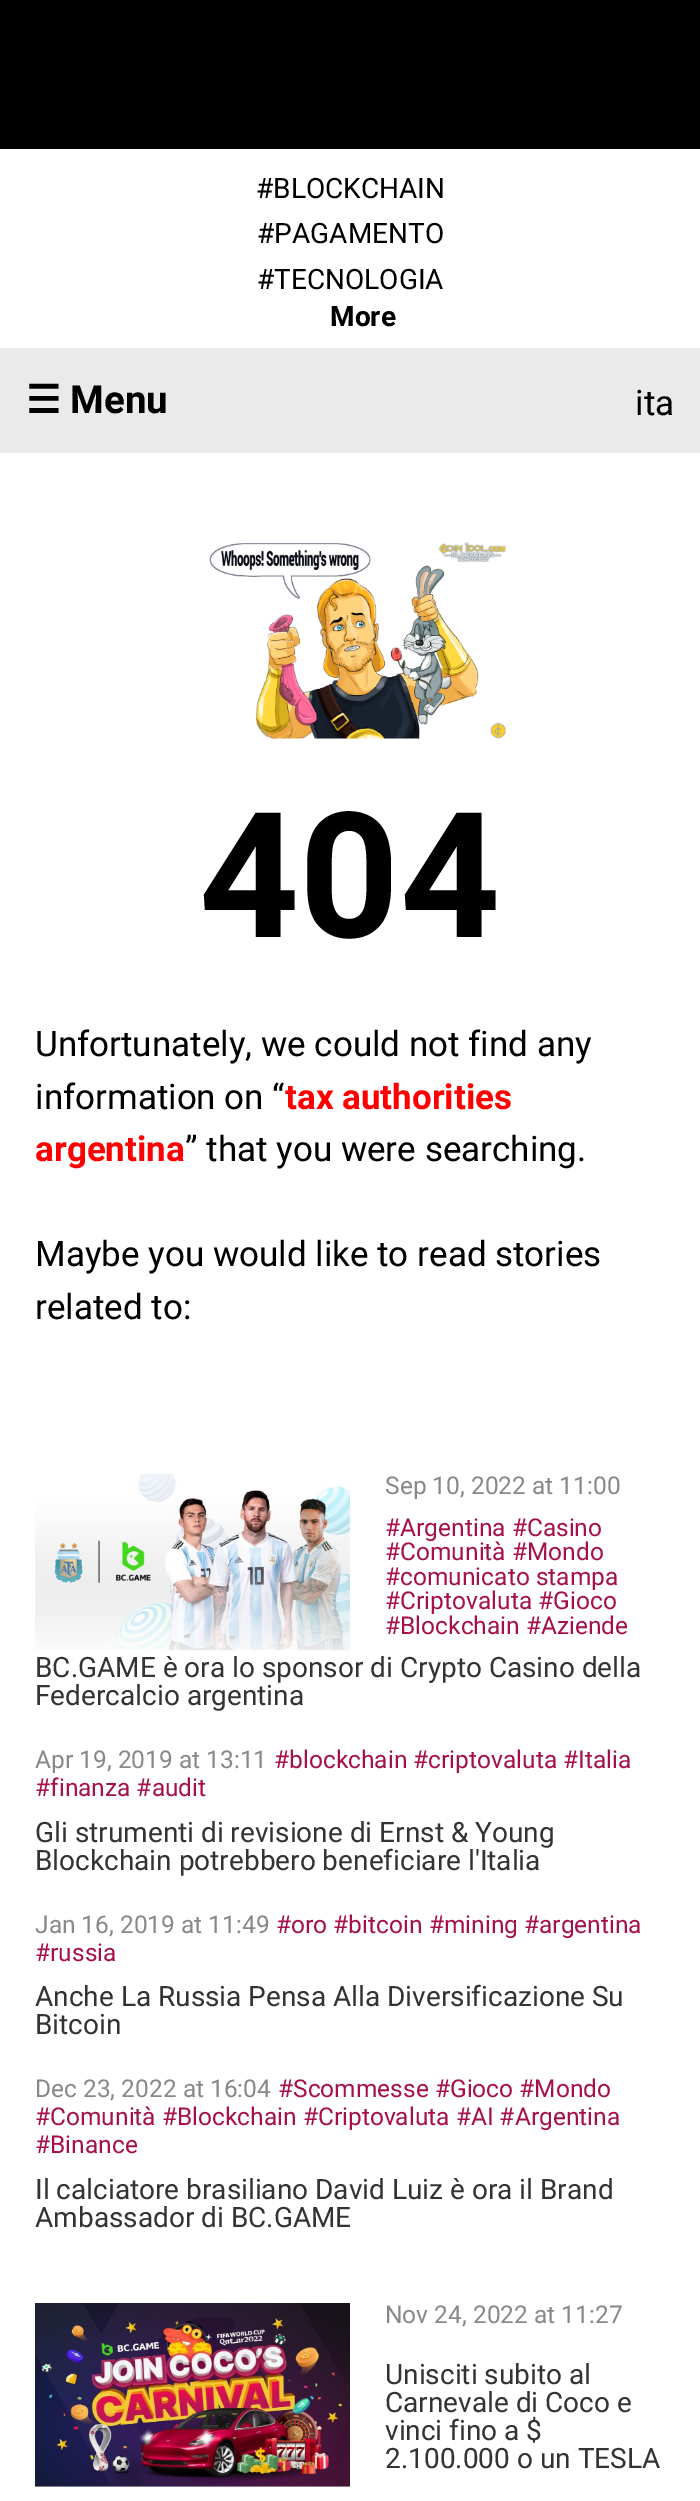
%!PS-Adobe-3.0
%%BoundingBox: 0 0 700 2501
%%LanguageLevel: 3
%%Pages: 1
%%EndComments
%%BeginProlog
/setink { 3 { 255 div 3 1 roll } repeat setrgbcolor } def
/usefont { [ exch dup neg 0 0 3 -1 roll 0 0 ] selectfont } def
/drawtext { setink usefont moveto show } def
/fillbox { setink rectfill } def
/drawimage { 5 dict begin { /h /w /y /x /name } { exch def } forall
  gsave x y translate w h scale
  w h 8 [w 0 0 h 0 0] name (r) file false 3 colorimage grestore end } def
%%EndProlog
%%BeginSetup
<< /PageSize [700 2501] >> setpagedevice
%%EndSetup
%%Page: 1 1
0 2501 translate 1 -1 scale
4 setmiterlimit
0 0 700 2501 255 255 255 fillbox
0 0 700 149 0 0 0 fillbox
(#BLOCKCHAIN) 256 198 /Roboto-Regular 28 0 0 0 drawtext
(#PAGAMENTO) 257 243 /Roboto-Regular 28 0 0 0 drawtext
(#TECNOLOGIA) 257 289 /Roboto-Regular 28 0 0 0 drawtext
(More) 330 326 /Roboto-Bold 28 0 0 0 drawtext
0 348 700 105 234 234 234 fillbox
(☰) 26 413 /DejaVuSans-Bold 38.5 0 0 0 drawtext
(Menu) 70 413 /Roboto-Bold 38.5 0 0 0 drawtext
(ita) 635 415 /Roboto-Regular 35 0 0 0 drawtext
(assets/img1.rgb) 209 542 297 197 drawimage
(404) 199 937 /Roboto-Bold 175 0 0 0 drawtext
(Unfortunately, we could not find any) 35 1056 /Roboto-Regular 35 0 0 0 drawtext
(information on “) 35 1109 /Roboto-Regular 35 0 0 0 drawtext
(tax authorities) 285 1109 /Roboto-Bold 35 255 0 0 drawtext
(argentina) 35 1161 /Roboto-Bold 35 255 0 0 drawtext
(” that you were searching.) 185 1161 /Roboto-Regular 35 0 0 0 drawtext
(Maybe you would like to read stories) 35 1266 /Roboto-Regular 35 0 0 0 drawtext
(related to:) 35 1319 /Roboto-Regular 35 0 0 0 drawtext
(assets/img2.rgb) 35 1473 315 178 drawimage
(Sep 10, 2022 at 11:00) 385 1494 /Roboto-Regular 24.5 136 136 136 drawtext
(#Argentina #Casino) 385 1536 /Roboto-Regular 24.5 165 16 76 drawtext
(#Comunità #Mondo) 385 1560 /Roboto-Regular 24.5 165 16 76 drawtext
(#comunicato stampa) 385 1585 /Roboto-Regular 24.5 165 16 76 drawtext
(#Criptovaluta #Gioco) 385 1609 /Roboto-Regular 24.5 165 16 76 drawtext
(#Blockchain #Aziende) 385 1634 /Roboto-Regular 24.5 165 16 76 drawtext
(BC.GAME è ora lo sponsor di Crypto Casino della) 35 1677 /Roboto-Regular 28 51 51 51 drawtext
(Federcalcio argentina) 35 1705 /Roboto-Regular 28 51 51 51 drawtext
(Apr 19, 2019 at 13:11) 35 1768 /Roboto-Regular 24.5 136 136 136 drawtext
(#blockchain #criptovaluta #Italia) 274 1768 /Roboto-Regular 24.5 165 16 76 drawtext
(#finanza #audit) 35 1796 /Roboto-Regular 24.5 165 16 76 drawtext
(Gli strumenti di revisione di Ernst & Young) 35 1842 /Roboto-Regular 28 51 51 51 drawtext
(Blockchain potrebbero beneficiare l'Italia) 35 1870 /Roboto-Regular 28 51 51 51 drawtext
(Jan 16, 2019 at 11:49) 35 1933 /Roboto-Regular 24.5 136 136 136 drawtext
(#oro #bitcoin #mining #argentina) 276 1933 /Roboto-Regular 24.5 165 16 76 drawtext
(#russia) 35 1961 /Roboto-Regular 24.5 165 16 76 drawtext
(Anche La Russia Pensa Alla Diversificazione Su) 35 2006 /Roboto-Regular 28 51 51 51 drawtext
(Bitcoin) 35 2034 /Roboto-Regular 28 51 51 51 drawtext
(Dec 23, 2022 at 16:04) 35 2097 /Roboto-Regular 24.5 136 136 136 drawtext
(#Scommesse #Gioco #Mondo) 278 2097 /Roboto-Regular 24.5 165 16 76 drawtext
(#Comunità #Blockchain #Criptovaluta #AI #Argentina) 35 2125 /Roboto-Regular 24.5 165 16 76 drawtext
(#Binance) 35 2153 /Roboto-Regular 24.5 165 16 76 drawtext
(Il calciatore brasiliano David Luiz è ora il Brand) 35 2199 /Roboto-Regular 28 51 51 51 drawtext
(Ambassador di BC.GAME) 35 2227 /Roboto-Regular 28 51 51 51 drawtext
(assets/img3.rgb) 35 2303 315 184 drawimage
(Nov 24, 2022 at 11:27) 385 2323 /Roboto-Regular 24.5 136 136 136 drawtext
(Unisciti subito al) 385 2384 /Roboto-Regular 28 51 51 51 drawtext
(Carnevale di Coco e) 385 2412 /Roboto-Regular 28 51 51 51 drawtext
(vinci fino a $) 385 2440 /Roboto-Regular 28 51 51 51 drawtext
(2.100.000 o un TESLA) 385 2468 /Roboto-Regular 28 51 51 51 drawtext
showpage
%%EOF
